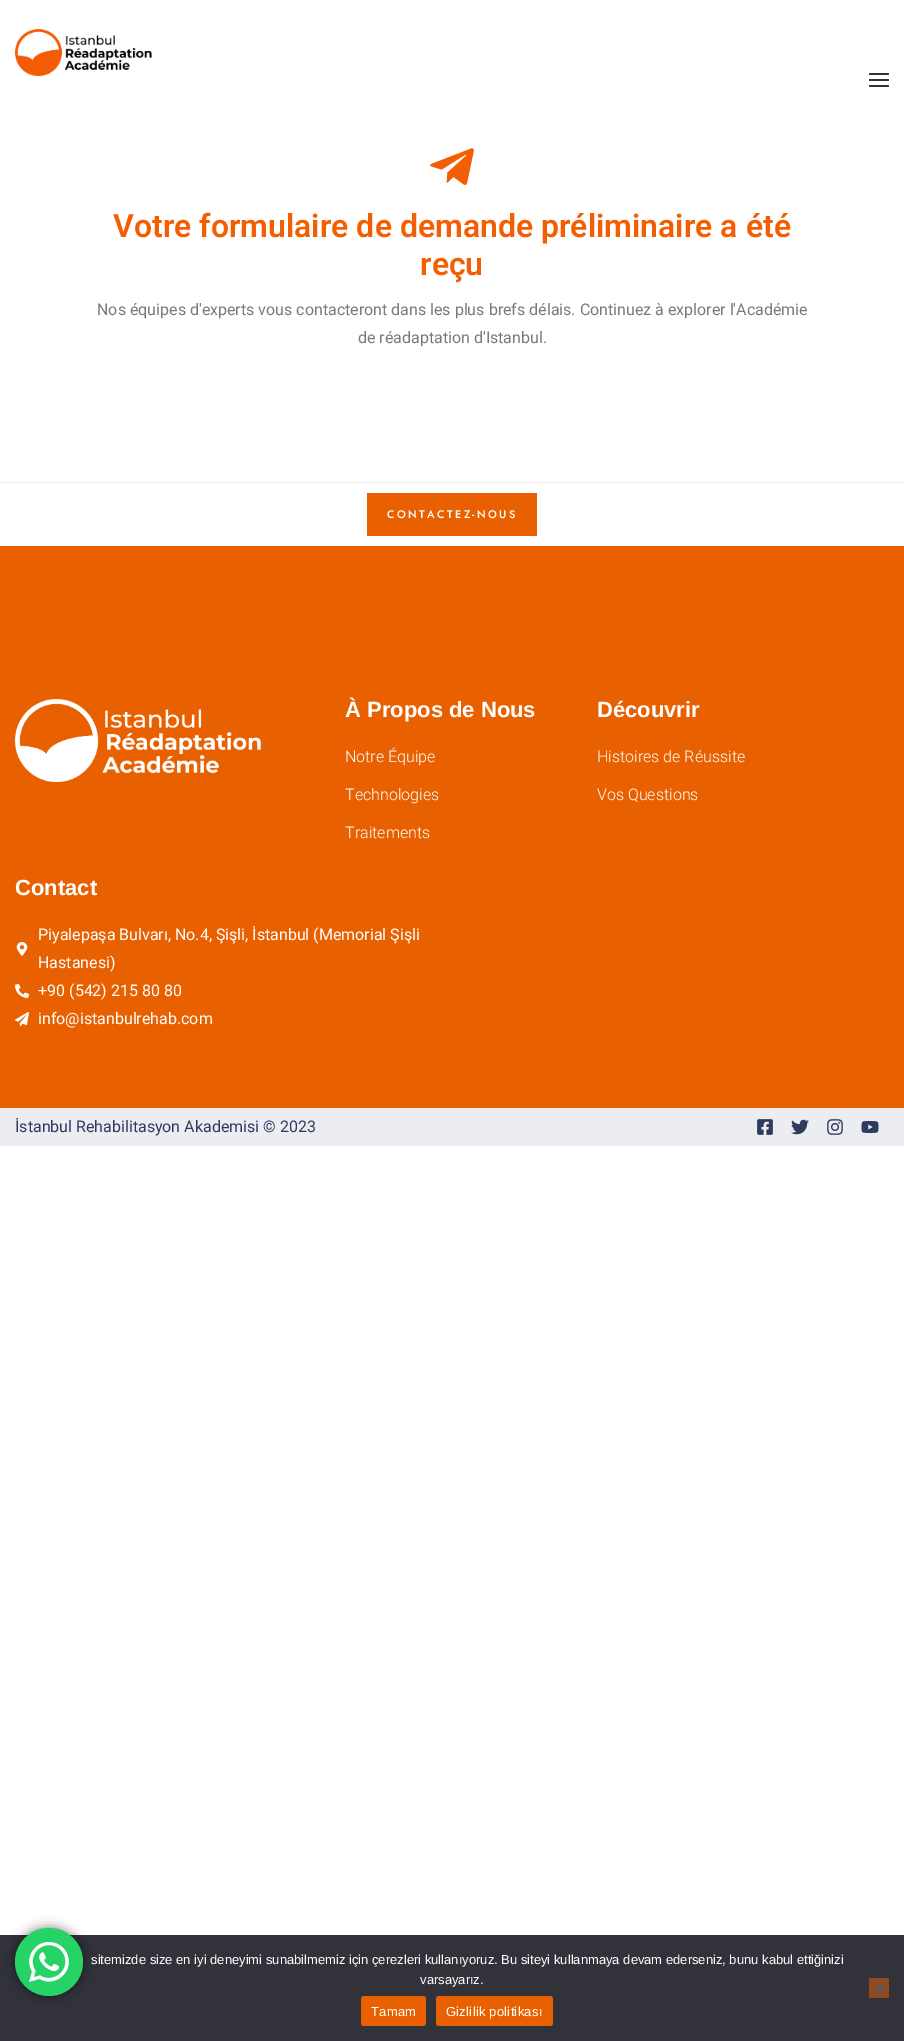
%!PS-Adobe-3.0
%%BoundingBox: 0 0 904 2041
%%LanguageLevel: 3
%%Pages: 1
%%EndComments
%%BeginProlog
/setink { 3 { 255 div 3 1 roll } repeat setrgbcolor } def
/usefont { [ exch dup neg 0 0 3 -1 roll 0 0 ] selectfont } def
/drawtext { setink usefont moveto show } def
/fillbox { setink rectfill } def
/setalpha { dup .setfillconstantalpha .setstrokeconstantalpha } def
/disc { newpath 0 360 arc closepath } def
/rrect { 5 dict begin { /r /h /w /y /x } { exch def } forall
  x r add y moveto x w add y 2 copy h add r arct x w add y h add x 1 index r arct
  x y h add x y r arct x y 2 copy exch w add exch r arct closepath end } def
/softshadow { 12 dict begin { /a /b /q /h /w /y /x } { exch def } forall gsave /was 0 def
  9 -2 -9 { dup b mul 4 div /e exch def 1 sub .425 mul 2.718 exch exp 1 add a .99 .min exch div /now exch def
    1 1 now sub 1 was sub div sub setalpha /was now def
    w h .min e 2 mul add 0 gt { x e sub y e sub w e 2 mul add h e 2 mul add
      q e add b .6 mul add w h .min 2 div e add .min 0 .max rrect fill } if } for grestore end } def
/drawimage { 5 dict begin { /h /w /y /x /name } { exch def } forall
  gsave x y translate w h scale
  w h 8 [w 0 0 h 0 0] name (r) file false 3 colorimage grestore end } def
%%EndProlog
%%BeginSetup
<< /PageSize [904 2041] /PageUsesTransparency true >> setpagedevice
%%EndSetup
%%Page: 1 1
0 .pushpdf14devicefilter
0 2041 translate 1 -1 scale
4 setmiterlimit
0 0 904 2041 255 255 255 fillbox
(assets/img1.rgb) 15 29 137 47 drawimage
51 51 51 setink
869 79 20 2 1 rrect fill
869 73 20 2 1 rrect fill
869 85 20 2 1 rrect fill
(assets/img2.rgb) 430 148 44 37 drawimage
(Votre formulaire de demande préliminaire a été) 113 237 /Roboto-SemiBold 32 243 94 2 drawtext
(reçu) 420 275 /Roboto-SemiBold 32 243 94 2 drawtext
(Nos équipes d'experts vous contacteront dans les plus brefs délais. Continuez à explorer l'Académie) 97 315 /Roboto-Regular 16 122 122 122 drawtext
(de réadaptation d'Istanbul.) 358 343 /Roboto-Regular 16 122 122 122 drawtext
0 482 904 1 237 237 237 fillbox
367 493 170 43 233 96 0 fillbox
/Jost-Medium 11 usefont
255 255 255 setink
387 518 moveto 2.4 0 (CONTACTEZ-NOUS) ashow
0 546 904 562 233 96 0 fillbox
(assets/img3.rgb) 15 699 246 83 drawimage
(À Propos de Nous) 345 717 /LiberationSans-Bold 22 255 255 255 drawtext
(Notre Équipe) 345 762 /Roboto-Light 16 255 255 255 drawtext
(Technologies) 345 800 /Roboto-Light 16 255 255 255 drawtext
(Traitements) 345 838 /Roboto-Light 16 255 255 255 drawtext
(Découvrir) 597 717 /LiberationSans-Bold 22 255 255 255 drawtext
(Histoires de Réussite) 597 762 /Roboto-Light 16 255 255 255 drawtext
(Vos Questions) 597 800 /Roboto-Light 16 255 255 255 drawtext
(Contact) 15 895 /LiberationSans-Bold 22 255 255 255 drawtext
(assets/img4.rgb) 16 942 12 14 drawimage
(Piyalepaşa Bulvarı, No.4, Şişli, İstanbul \(Memorial Şişli) 38 940 /Roboto-Regular 16 255 255 255 drawtext
(Hastanesi\)) 38 968 /Roboto-Regular 16 255 255 255 drawtext
(assets/img5.rgb) 15 984 14 14 drawimage
(+90 \(542\) 215 80 80) 38 996 /Roboto-Regular 16 255 255 255 drawtext
(assets/img6.rgb) 15 1012 14 14 drawimage
(info@istanbulrehab.com) 38 1024 /Roboto-Regular 16 255 255 255 drawtext
0 1108 904 38 236 237 240 fillbox
(İstanbul Rehabilitasyon Akademisi © 2023) 15 1132 /Roboto-Regular 16 47 58 95 drawtext
(assets/img7.rgb) 757 1119 16 16 drawimage
(assets/img8.rgb) 791 1119 18 16 drawimage
(assets/img9.rgb) 827 1119 16 16 drawimage
(assets/img10.rgb) 861 1121 18 12 drawimage
0 1935 904 106 50 50 58 fillbox
0 0 0 setink
15 1928 68 68 34 5.5 0.5 softshadow
37 211 102 setink
49 1962 34 disc fill
(assets/img11.rgb) 29 1942 40 40 drawimage
(sitemizde size en iyi deneyimi sunabilmemiz için çerezleri kullanıyoruz. Bu siteyi kullanmaya devam ederseniz, bunu kabul ettiğinizi) 91 1964 /LiberationSans-Regular 13 255 255 255 drawtext
(varsayarız.) 420 1984 /LiberationSans-Regular 13 255 255 255 drawtext
869 1978 20 20 147 72 30 fillbox
89 89 93 setink
884.5 1982.5 moveto 886 1984 lineto 875.5 1994.5 lineto 874 1993 lineto closepath fill
874 1984 moveto 875.5 1982.5 lineto 886 1993 lineto 884.5 1994.5 lineto closepath fill
233 96 0 setink
361 1996 65 30 3 rrect fill
255 255 255 setink
371 2016 moveto 0.25 0 (Tamam) ashow
233 96 0 setink
436 1996 117 30 3 rrect fill
255 255 255 setink
446 2016 moveto 0.25 0 (Gizlilik politikası) ashow
.poppdf14devicefilter showpage
%%EOF
